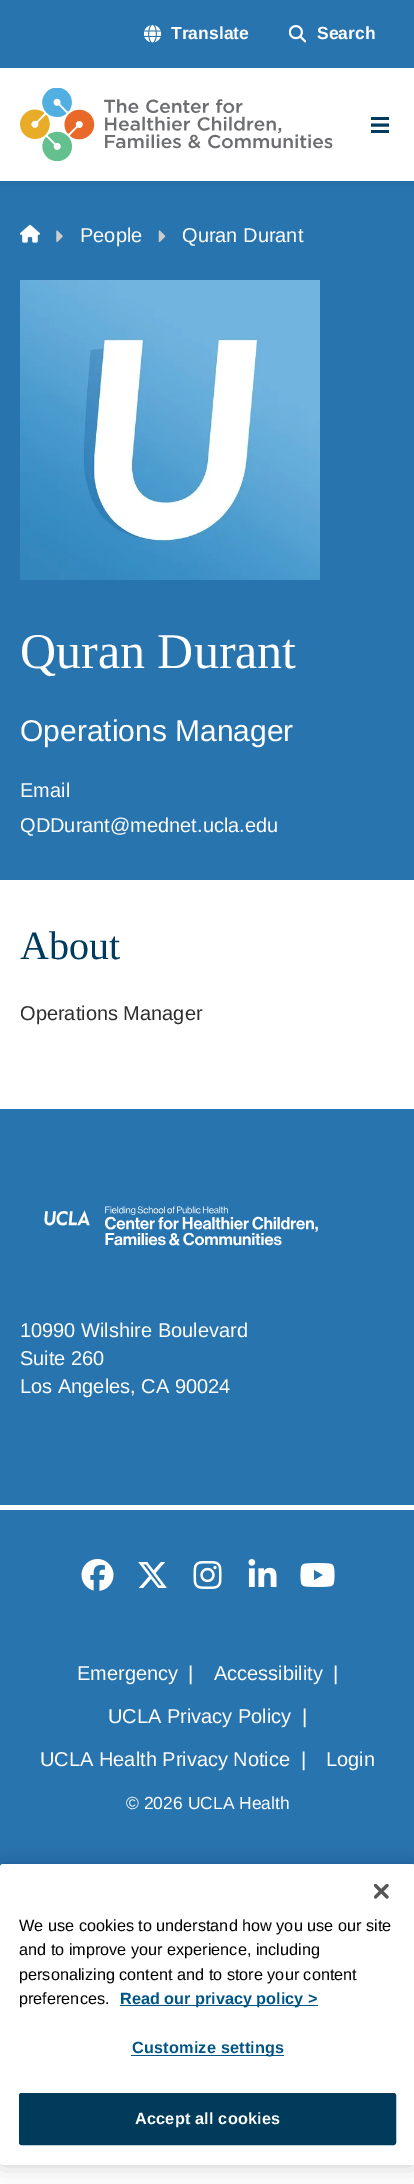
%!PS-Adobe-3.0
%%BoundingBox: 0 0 414 2184
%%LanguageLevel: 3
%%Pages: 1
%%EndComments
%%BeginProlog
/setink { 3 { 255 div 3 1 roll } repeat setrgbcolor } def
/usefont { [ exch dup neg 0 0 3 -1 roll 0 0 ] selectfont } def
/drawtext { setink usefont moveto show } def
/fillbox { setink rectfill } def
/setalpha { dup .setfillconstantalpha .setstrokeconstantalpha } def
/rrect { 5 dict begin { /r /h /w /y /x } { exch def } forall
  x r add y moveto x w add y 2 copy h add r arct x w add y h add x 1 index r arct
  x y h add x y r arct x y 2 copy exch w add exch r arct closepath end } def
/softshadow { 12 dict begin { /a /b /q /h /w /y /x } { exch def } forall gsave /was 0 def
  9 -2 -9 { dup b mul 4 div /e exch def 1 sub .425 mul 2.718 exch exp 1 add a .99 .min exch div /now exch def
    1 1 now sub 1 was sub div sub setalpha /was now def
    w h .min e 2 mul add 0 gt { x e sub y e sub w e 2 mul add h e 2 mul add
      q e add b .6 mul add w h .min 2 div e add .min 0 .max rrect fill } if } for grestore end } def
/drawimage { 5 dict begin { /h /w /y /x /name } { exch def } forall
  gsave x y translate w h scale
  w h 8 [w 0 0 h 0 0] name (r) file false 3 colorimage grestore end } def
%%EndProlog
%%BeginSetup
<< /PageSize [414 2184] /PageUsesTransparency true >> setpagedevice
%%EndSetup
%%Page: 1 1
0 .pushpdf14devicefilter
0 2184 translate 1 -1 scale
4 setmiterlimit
0 0 414 2184 255 255 255 fillbox
0 181 414 699 40 116 175 fillbox
gsave
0 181 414 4 rectclip
0 0 0 setink
0 1 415 182 0 2 0.1 softshadow
grestore
0 0 414 68 40 116 175 fillbox
(assets/img1.rgb) 144 25 17 18 drawimage
(Translate) 171 39 /LiberationSans-Bold 17.5 255 255 255 drawtext
(assets/img2.rgb) 289 25 17 18 drawimage
(Search) 317 39 /LiberationSans-Bold 17.5 255 255 255 drawtext
(assets/img3.rgb) 20 88 313 73 drawimage
371 117 18 3 0 58 92 fillbox
3 setlinewidth
371 125 moveto 389 125 lineto stroke
371 130 18 3 0 58 92 fillbox
(assets/img4.rgb) 20 224 20 19 drawimage
(assets/img5.rgb) 56 230 7 12 drawimage
(People) 80 242 /LiberationSans-Regular 20 255 255 255 drawtext
(assets/img6.rgb) 158 230 8 12 drawimage
(Quran Durant) 182 242 /LiberationSans-Regular 20 255 255 255 drawtext
(assets/img7.rgb) 20 280 300 300 drawimage
(Quran Durant) 20 668 /LiberationSerif-Regular 50 255 255 255 drawtext
(Operations Manager) 20 741 /LiberationSans-Regular 30 255 255 255 drawtext
(Email) 20 797 /LiberationSans-Regular 20 255 255 255 drawtext
(QDDurant@mednet.ucla.edu) 20 832 /LiberationSans-Regular 20 255 255 255 drawtext
(About) 20 959 /LiberationSerif-Regular 40 0 58 92 drawtext
(Operations Manager) 20 1020 /LiberationSans-Regular 20 46 46 46 drawtext
0 1109 414 758 40 116 175 fillbox
(assets/img8.rgb) 44 1206 274 40 drawimage
(10990 Wilshire Boulevard) 20 1337 /LiberationSans-Regular 20 255 255 255 drawtext
(Suite 260) 20 1365 /LiberationSans-Regular 20 255 255 255 drawtext
(Los Angeles, CA 90024) 20 1393 /LiberationSans-Regular 20 255 255 255 drawtext
0 1505 414 5 255 255 255 fillbox
(assets/img9.rgb) 81 1559 33 32 drawimage
(assets/img10.rgb) 138 1562 29 26 drawimage
(assets/img11.rgb) 193 1561 29 28 drawimage
(assets/img12.rgb) 248 1559 29 28 drawimage
(assets/img13.rgb) 300 1563 35 24 drawimage
(Emergency) 77 1680 /LiberationSans-Regular 20 255 255 255 drawtext
(|) 188 1680 /LiberationSans-Regular 20 255 255 255 drawtext
(Accessibility) 214 1680 /LiberationSans-Regular 20 255 255 255 drawtext
(|) 333 1680 /LiberationSans-Regular 20 255 255 255 drawtext
(UCLA Privacy Policy) 108 1723 /LiberationSans-Regular 20 255 255 255 drawtext
(|) 302 1723 /LiberationSans-Regular 20 255 255 255 drawtext
(UCLA Health Privacy Notice) 40 1766 /LiberationSans-Regular 20 255 255 255 drawtext
(|) 301 1766 /LiberationSans-Regular 20 255 255 255 drawtext
(Login) 326 1766 /LiberationSans-Regular 20 255 255 255 drawtext
(© 2026 UCLA Health) 126 1809 /LiberationSans-Regular 17.5 255 255 255 drawtext
0 0 0 setink
0 1864 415 301 3 11 0.2 softshadow
255 255 255 setink
0 1864 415 301 3 rrect fill
(assets/img14.rgb) 374 1884 15 15 drawimage
(We use cookies to understand how you use our site) 19 1931 /LiberationSans-Regular 16.25 0 0 0 drawtext
(and to improve your experience, including) 19 1955 /LiberationSans-Regular 16.25 0 0 0 drawtext
(personalizing content and to store your content) 19 1980 /LiberationSans-Regular 16.25 0 0 0 drawtext
(preferences.) 19 2004 /LiberationSans-Regular 16.25 0 0 0 drawtext
120 2005 198 1 0 85 135 fillbox
(Read our privacy policy >) 120 2004 /LiberationSans-Bold 16.25 0 85 135 drawtext
131 2055 153 1 0 85 135 fillbox
132 2053 moveto 0.2 0 (Customize settings) ashow
0 59 92 setink
19.5 2093.5 376 51 2 rrect gsave fill grestore
1 setlinewidth
stroke
255 255 255 setink
135 2124 moveto 0.2 0 (Accept all cookies) ashow
.poppdf14devicefilter showpage
%%EOF
